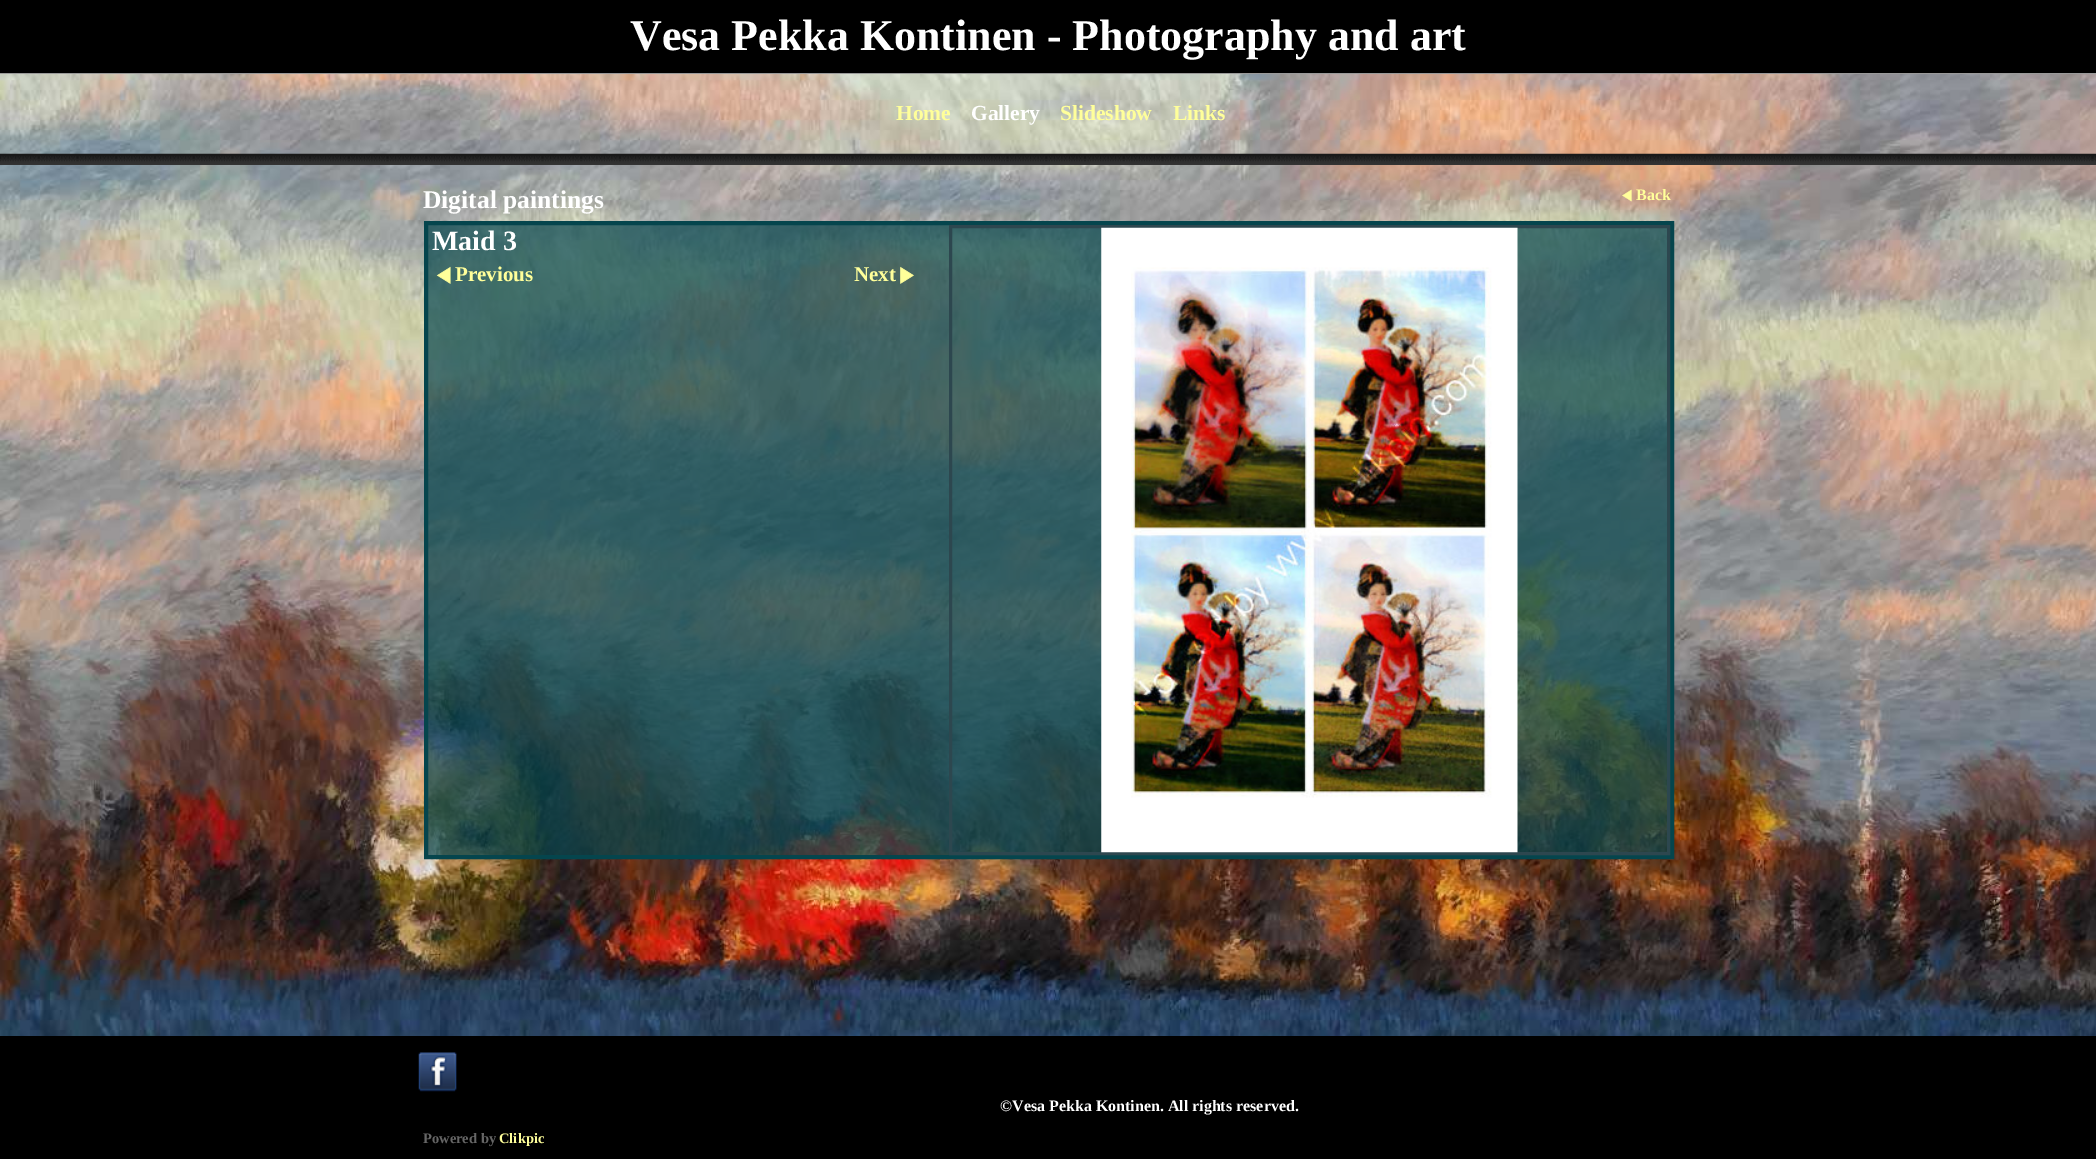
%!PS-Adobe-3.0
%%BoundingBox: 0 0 2096 1159
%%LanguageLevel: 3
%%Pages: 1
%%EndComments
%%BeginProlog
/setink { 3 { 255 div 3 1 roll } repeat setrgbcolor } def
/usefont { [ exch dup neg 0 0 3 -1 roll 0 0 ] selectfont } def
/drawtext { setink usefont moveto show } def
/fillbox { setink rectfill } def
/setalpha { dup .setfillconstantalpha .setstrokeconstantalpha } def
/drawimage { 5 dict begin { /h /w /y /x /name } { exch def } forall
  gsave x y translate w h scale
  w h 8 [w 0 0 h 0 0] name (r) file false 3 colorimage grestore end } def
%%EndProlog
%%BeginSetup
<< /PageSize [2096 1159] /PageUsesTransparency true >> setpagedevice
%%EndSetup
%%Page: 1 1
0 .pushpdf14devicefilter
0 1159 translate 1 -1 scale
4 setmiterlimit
0 0 2096 1159 255 255 255 fillbox
(assets/img1.rgb) 0 74 2096 962 drawimage
0 0 2096 73 0 0 0 fillbox
0 73 2096 1 154 154 154 fillbox
(Vesa Pekka Kontinen - Photography and art) 630 50 /LiberationSerif-Bold 44 255 255 255 drawtext
(Home) 896 120 /LiberationSerif-Bold 21.5 255 255 154 drawtext
(Gallery) 971 120 /LiberationSerif-Bold 21.5 255 255 255 drawtext
(Slideshow) 1060 120 /LiberationSerif-Bold 21.5 255 255 154 drawtext
(Links) 1173 120 /LiberationSerif-Bold 21.5 255 255 154 drawtext
(assets/img2.rgb) 0 153 2096 12 drawimage
(Digital paintings) 423 208 /LiberationSerif-Bold 25.5 255 255 255 drawtext
(assets/img3.rgb) 1622 189 10 13 drawimage
(Back) 1636 200 /LiberationSerif-Bold 16 255 255 154 drawtext
0.7 setalpha
428 225 1239 630 5 69 77 fillbox
1 setalpha
4 setlinewidth
426 223 1246 634 rectstroke
(Maid 3) 432 250 /LiberationSerif-Bold 28 255 255 255 drawtext
(assets/img4.rgb) 436 266 15 18 drawimage
(Previous) 455 281 /LiberationSerif-Bold 21 255 255 154 drawtext
(Next) 854 281 /LiberationSerif-Bold 21 255 255 154 drawtext
(assets/img5.rgb) 900 266 14 18 drawimage
45 71 79 setink
3 setlinewidth
950.5 226.5 718 627 rectstroke
(assets/img6.rgb) 1101 227 417 626 drawimage
0 1036 2096 123 0 0 0 fillbox
(assets/img7.rgb) 418 1052 39 40 drawimage
(©Vesa Pekka Kontinen. All rights reserved.) 1000 1111 /LiberationSerif-Bold 16 255 255 255 drawtext
(Powered by) 423 1143 /LiberationSerif-Bold 14.5 102 102 102 drawtext
(Clikpic) 499 1143 /LiberationSerif-Bold 14.5 255 255 154 drawtext
.poppdf14devicefilter showpage
%%EOF
